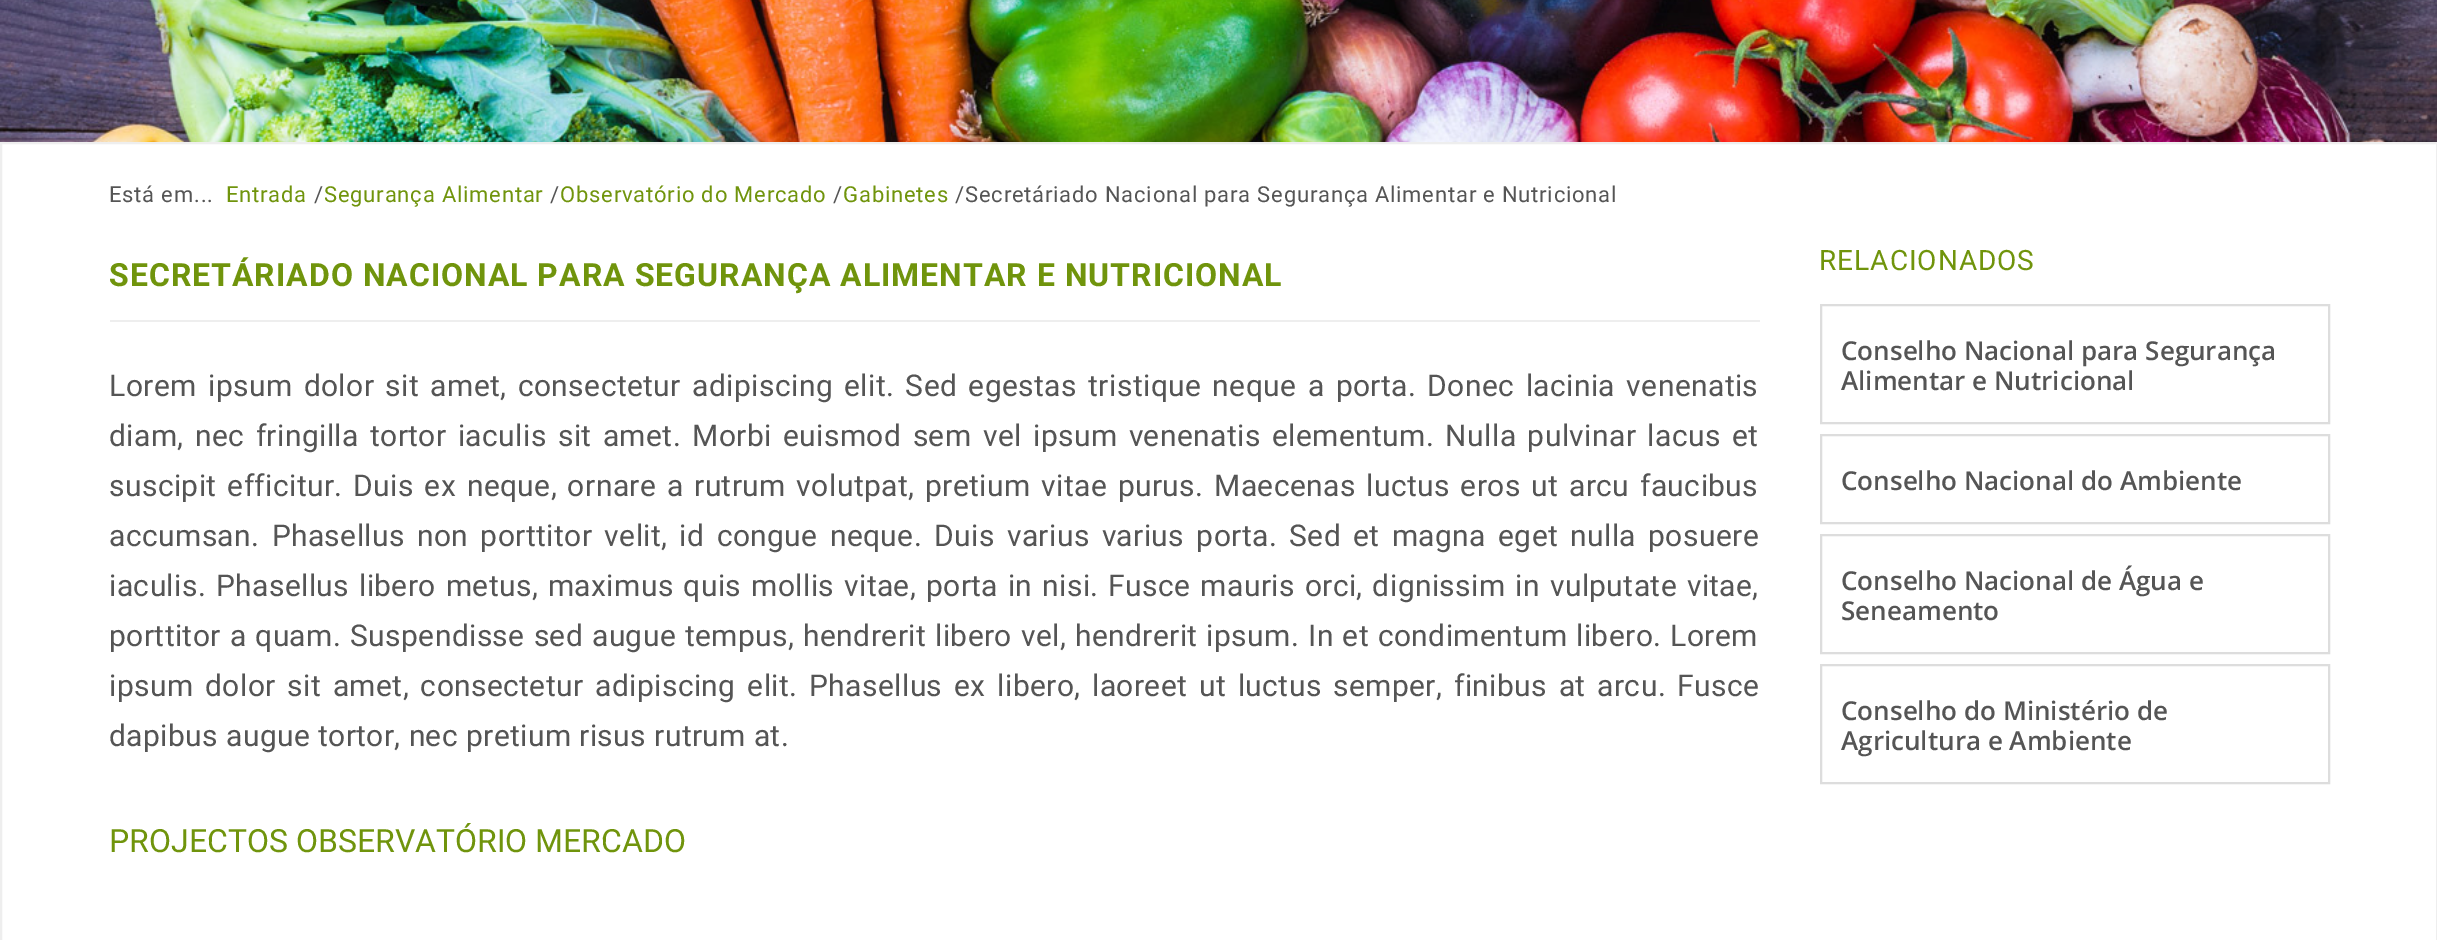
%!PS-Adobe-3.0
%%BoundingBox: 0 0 2437 940
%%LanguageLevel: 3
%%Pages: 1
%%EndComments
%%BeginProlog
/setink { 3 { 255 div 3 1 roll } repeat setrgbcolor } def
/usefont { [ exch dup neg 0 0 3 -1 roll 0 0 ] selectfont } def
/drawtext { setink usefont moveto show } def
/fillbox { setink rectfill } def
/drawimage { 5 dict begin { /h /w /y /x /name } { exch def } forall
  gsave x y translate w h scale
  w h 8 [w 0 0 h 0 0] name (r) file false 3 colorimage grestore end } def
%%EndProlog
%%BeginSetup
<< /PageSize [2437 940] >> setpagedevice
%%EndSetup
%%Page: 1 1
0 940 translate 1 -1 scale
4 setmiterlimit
0 0 2437 940 255 255 255 fillbox
(assets/img1.rgb) 0 0 2437 142 drawimage
238 238 238 setink
2 setlinewidth
1 143 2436 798 rectstroke
/Roboto-Regular 22 usefont
85 85 85 setink
109 202 moveto 0.8 0 (Está em...) ashow
112 148 12 setink
226 202 moveto 0.8 0 (Entrada) ashow
85 85 85 setink
314 202 moveto 0.8 0 (/) ashow
112 148 12 setink
324 202 moveto 0.8 0 (Segurança Alimentar) ashow
85 85 85 setink
550 202 moveto 0.8 0 (/) ashow
112 148 12 setink
560 202 moveto 0.8 0 (Observatório do Mercado) ashow
85 85 85 setink
833 202 moveto 0.8 0 (/) ashow
112 148 12 setink
843 202 moveto 0.8 0 (Gabinetes) ashow
85 85 85 setink
955 202 moveto 0.8 0 (/Secretáriado Nacional para Segurança Alimentar e Nutricional) ashow
110 320 1650 2 238 238 238 fillbox
/Roboto-Bold 32 usefont
112 148 12 setink
109 286 moveto 1 0 (SECRETÁRIADO NACIONAL PARA SEGURANÇA ALIMENTAR E NUTRICIONAL) ashow
/Roboto-Regular 30 usefont
85 85 85 setink
109 396 moveto 3.4 0 32 0.4 0 (Lorem ipsum dolor sit amet, consectetur adipiscing elit. Sed egestas tristique neque a porta. Donec lacinia venenatis) awidthshow
109 446 moveto 3.4 0 32 0.4 0 (diam, nec fringilla tortor iaculis sit amet. Morbi euismod sem vel ipsum venenatis elementum. Nulla pulvinar lacus et) awidthshow
109 496 moveto 2.75 0 32 0.4 0 (suscipit efficitur. Duis ex neque, ornare a rutrum volutpat, pretium vitae purus. Maecenas luctus eros ut arcu faucibus) awidthshow
109 546 moveto 4.25 0 32 0.4 0 (accumsan. Phasellus non porttitor velit, id congue neque. Duis varius varius porta. Sed et magna eget nulla posuere) awidthshow
109 596 moveto 1.9 0 32 0.4 0 (iaculis. Phasellus libero metus, maximus quis mollis vitae, porta in nisi. Fusce mauris orci, dignissim in vulputate vitae,) awidthshow
109 646 moveto 1 0 32 0.4 0 (porttitor a quam. Suspendisse sed augue tempus, hendrerit libero vel, hendrerit ipsum. In et condimentum libero. Lorem) awidthshow
109 696 moveto 3.75 0 32 0.4 0 (ipsum dolor sit amet, consectetur adipiscing elit. Phasellus ex libero, laoreet ut luctus semper, finibus at arcu. Fusce) awidthshow
109 746 moveto 0.4 0 (dapibus augue tortor, nec pretium risus rutrum at.) ashow
(PROJECTOS OBSERVATÓRIO MERCADO) 109 852 /Roboto-Regular 32 112 148 12 drawtext
/Roboto-Regular 28 usefont
1819 270 moveto 1 0 (RELACIONADOS) ashow
221 221 221 setink
1821 305 508 118 rectstroke
(Conselho Nacional para Segurança) 1841 360 /OpenSans-SemiBold 26 85 85 85 drawtext
(Alimentar e Nutricional) 1841 390 /OpenSans-SemiBold 26 85 85 85 drawtext
221 221 221 setink
1821 435 508 88 rectstroke
(Conselho Nacional do Ambiente) 1841 490 /OpenSans-SemiBold 26 85 85 85 drawtext
221 221 221 setink
1821 535 508 118 rectstroke
(Conselho Nacional de Água e) 1841 590 /OpenSans-SemiBold 26 85 85 85 drawtext
(Seneamento) 1841 620 /OpenSans-SemiBold 26 85 85 85 drawtext
221 221 221 setink
1821 665 508 118 rectstroke
(Conselho do Ministério de) 1841 720 /OpenSans-SemiBold 26 85 85 85 drawtext
(Agricultura e Ambiente) 1841 750 /OpenSans-SemiBold 26 85 85 85 drawtext
showpage
%%EOF
